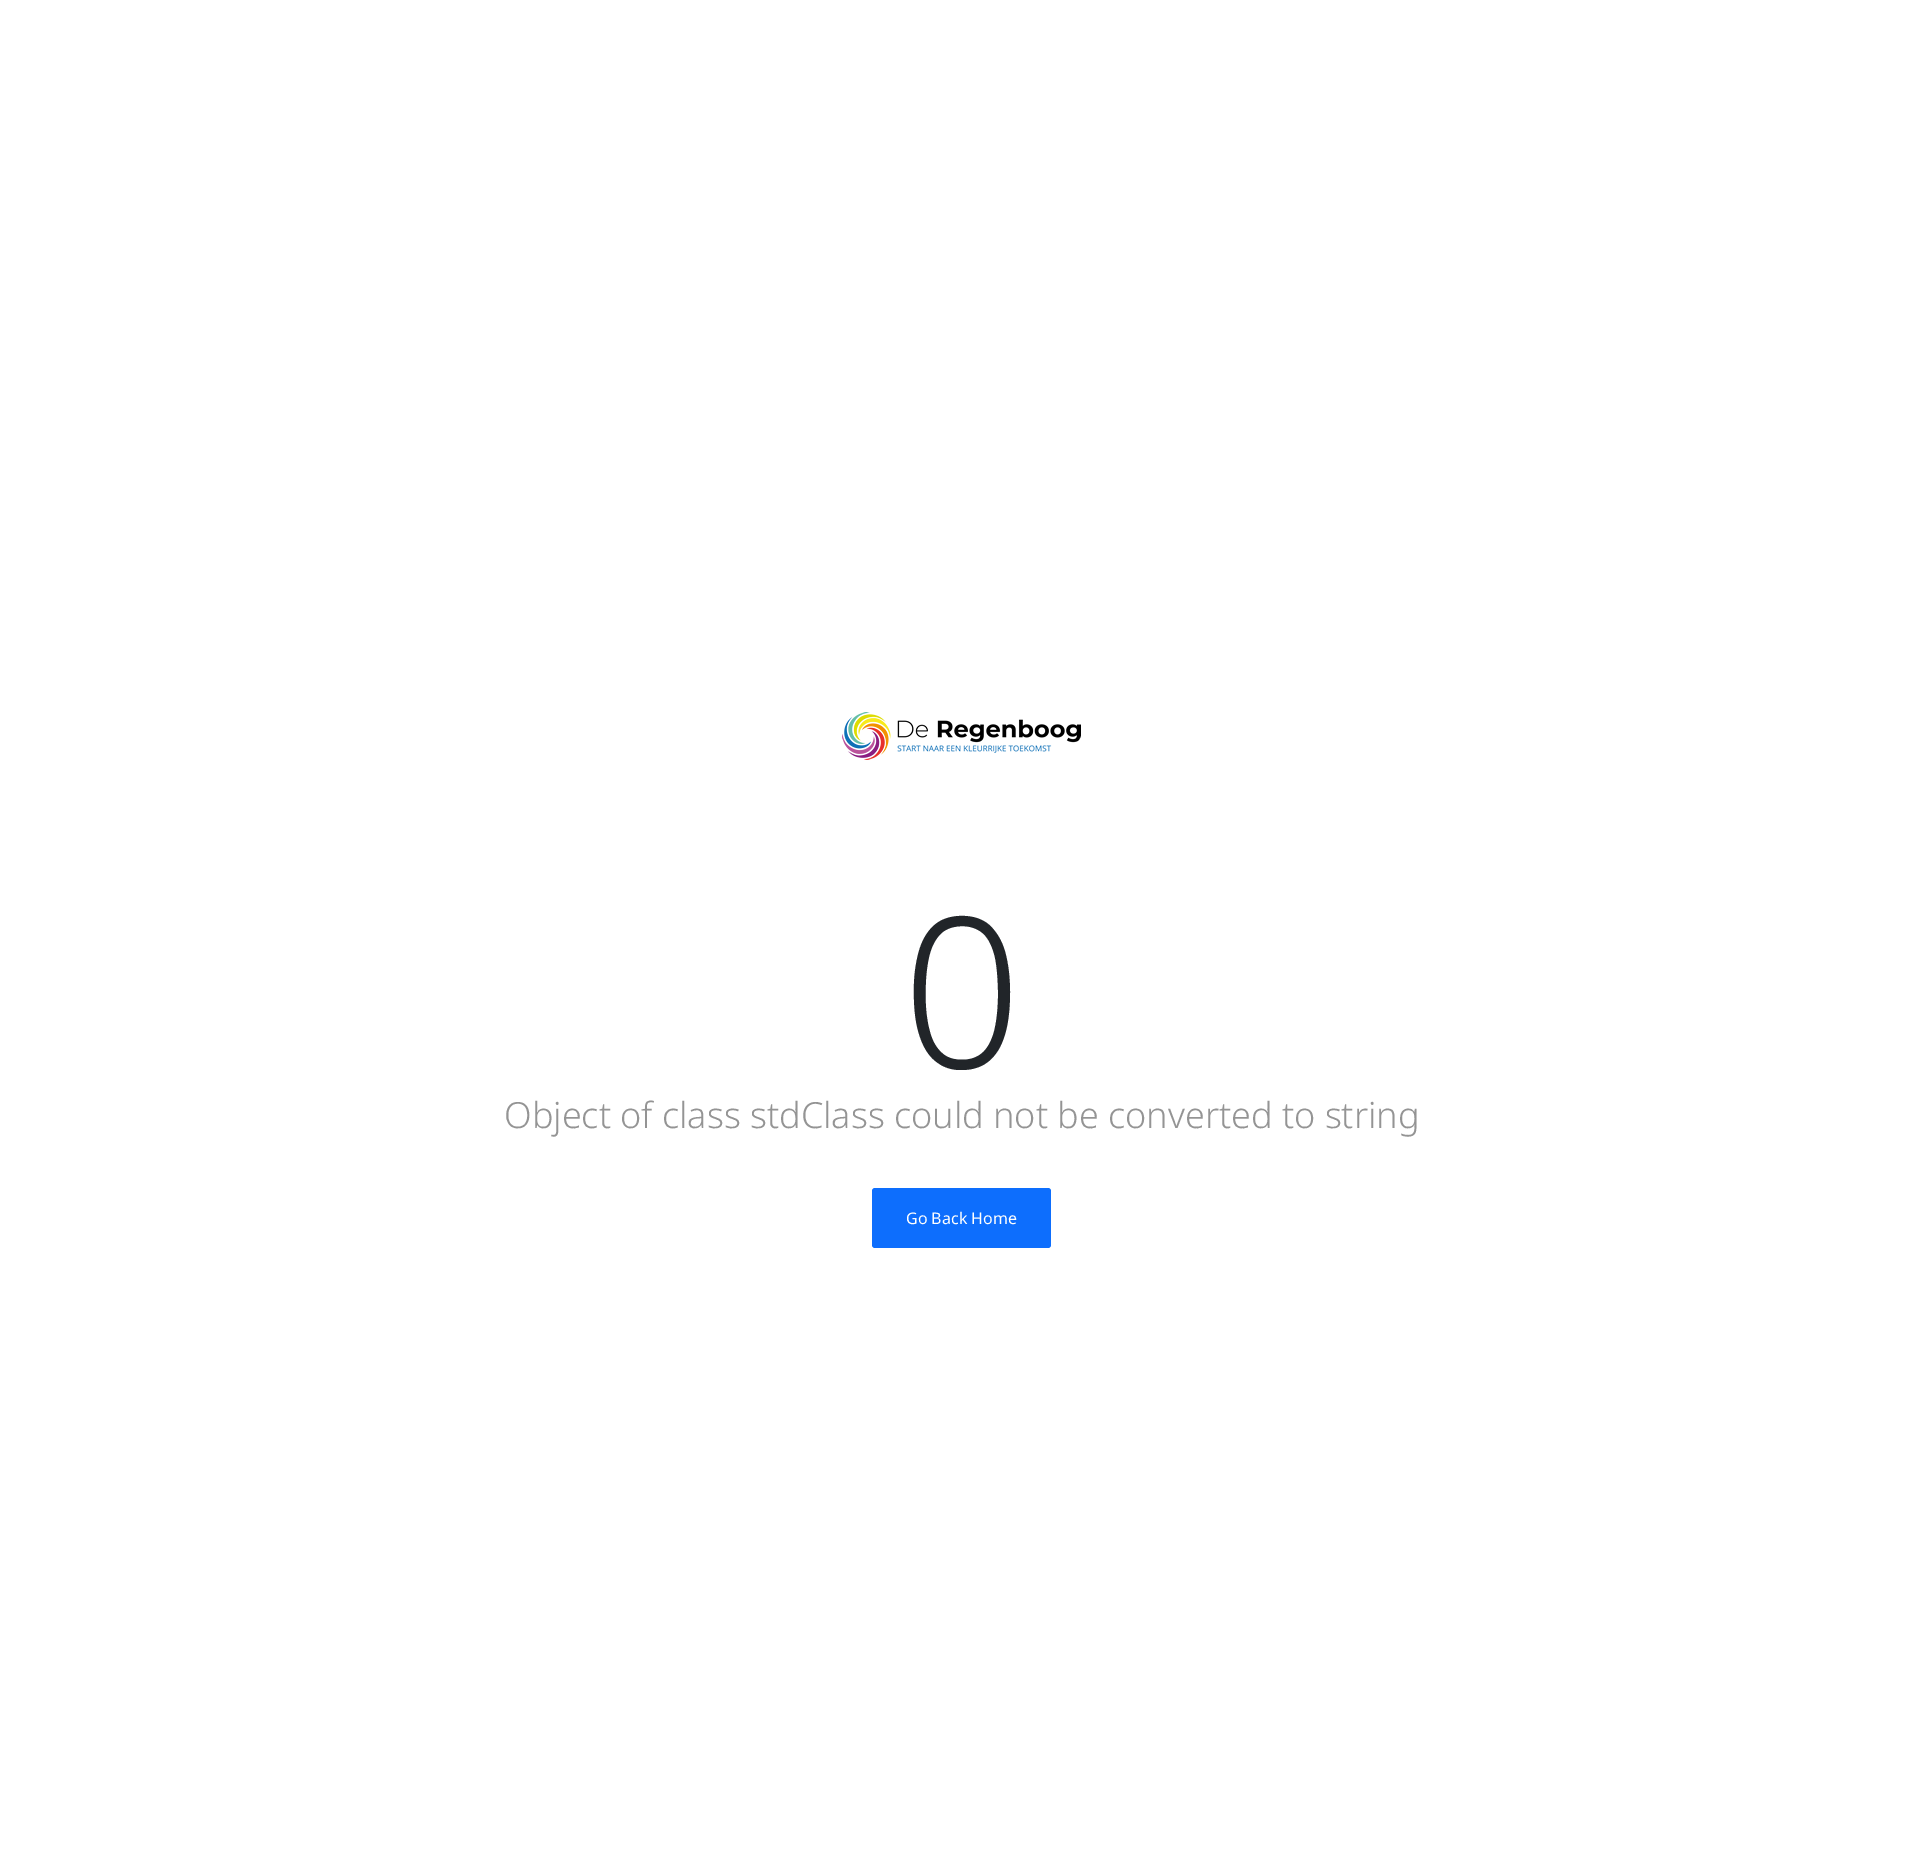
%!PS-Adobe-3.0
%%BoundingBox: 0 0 1923 1865
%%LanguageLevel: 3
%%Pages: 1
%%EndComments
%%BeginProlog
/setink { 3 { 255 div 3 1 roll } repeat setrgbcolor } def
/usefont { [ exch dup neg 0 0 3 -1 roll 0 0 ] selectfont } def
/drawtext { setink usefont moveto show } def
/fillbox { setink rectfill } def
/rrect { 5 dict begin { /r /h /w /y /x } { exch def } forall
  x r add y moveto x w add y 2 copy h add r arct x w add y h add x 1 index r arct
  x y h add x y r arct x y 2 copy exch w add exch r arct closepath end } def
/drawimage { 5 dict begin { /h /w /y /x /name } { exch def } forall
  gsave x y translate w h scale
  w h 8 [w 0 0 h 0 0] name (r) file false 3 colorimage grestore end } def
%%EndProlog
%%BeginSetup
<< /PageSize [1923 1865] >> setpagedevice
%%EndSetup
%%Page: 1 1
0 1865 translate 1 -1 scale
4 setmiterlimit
0 0 1923 1865 255 255 255 fillbox
(assets/img1.rgb) 842 712 239 48 drawimage
(0) 902 1068 /NotoSans-Light 210 33 37 41 drawtext
(Object of class stdClass could not be converted to string) 504 1128 /NotoSans-Light 36 148 148 148 drawtext
13 110 253 setink
872 1188 179 60 3 rrect fill
(Go Back Home) 906 1224 /NotoSans-Regular 16 255 255 255 drawtext
showpage
%%EOF
